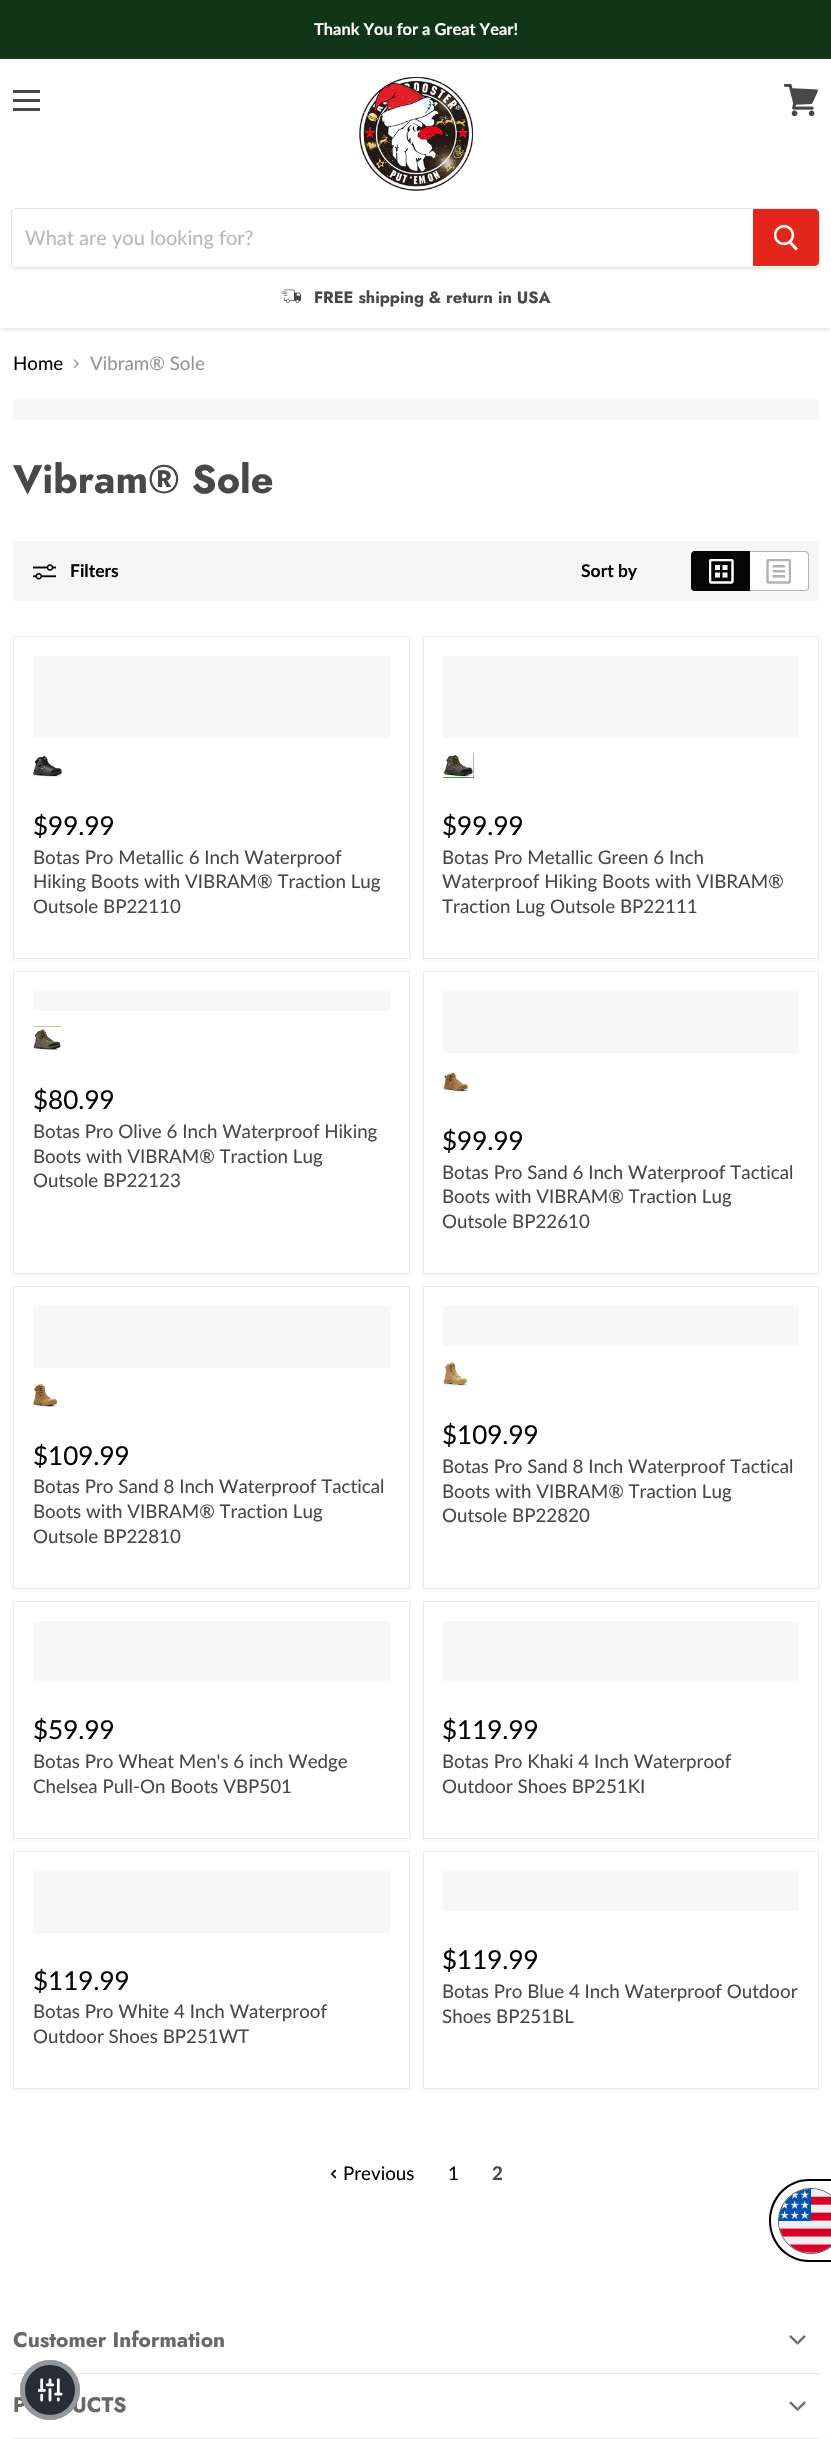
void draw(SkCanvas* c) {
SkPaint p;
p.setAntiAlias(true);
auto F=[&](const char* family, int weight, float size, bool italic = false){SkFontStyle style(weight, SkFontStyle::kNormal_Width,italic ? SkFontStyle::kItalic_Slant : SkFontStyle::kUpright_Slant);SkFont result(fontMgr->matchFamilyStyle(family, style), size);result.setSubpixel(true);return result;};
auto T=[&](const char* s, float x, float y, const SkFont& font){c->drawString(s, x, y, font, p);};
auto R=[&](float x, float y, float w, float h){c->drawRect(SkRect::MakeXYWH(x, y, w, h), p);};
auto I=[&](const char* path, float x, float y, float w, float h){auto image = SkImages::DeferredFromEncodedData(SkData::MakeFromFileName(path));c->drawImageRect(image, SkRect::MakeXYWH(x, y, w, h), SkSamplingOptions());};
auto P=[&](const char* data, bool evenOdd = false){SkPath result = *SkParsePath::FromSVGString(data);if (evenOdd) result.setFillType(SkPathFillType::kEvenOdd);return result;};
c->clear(0xffffffff);
p.setColor(0xff103519);
R(0,0,831,59);
auto f1 = F("Lato",700,16.4);
p.setColor(0xffffffff);
T("Thank You for a Great Year!",314,35,f1);
p.setColor(0x407f7f7f);
p.setMaskFilter(SkMaskFilter::MakeBlur(kNormal_SkBlurStyle, 2.5));
c->drawRect(SkRect::MakeXYWH(0,60,831,269),p);
p.setMaskFilter(nullptr);
p.setColor(0xffffffff);
R(0,59,831,269);
p.setColor(0xff484848);
R(13,90,27,3);
R(13,99,27,3);
R(13,108,27,3);
I("1.png",784,84,34,32);
I("2.png",359,76,115,116);
c->save();
c->clipPath(P("M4 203h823v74h-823zm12 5h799c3 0 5 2 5 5v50c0 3-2 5-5 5h-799c-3 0-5-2-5-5v-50c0-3 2-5 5-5z",true),true);
p.setColor(0x1c7f7f7f);
p.setMaskFilter(SkMaskFilter::MakeBlur(kNormal_SkBlurStyle, 2));
c->drawRoundRect(SkRect::MakeXYWH(11,210,809,60),5,5,p);
p.setMaskFilter(nullptr);
c->restore();
p.setStroke(true);
p.setStrokeWidth(1);
p.setColor(0x337f7f7f);
c->drawRoundRect(SkRect::MakeXYWH(11.5,208.5,808,59),4.5,4.5,p);
auto f2 = F("Lato",400,20);
p.setStroke(false);
p.setColor(0xffb8b8b8);
T("What are you looking for?",25,245,f2);
p.setColor(0xffe32619);
c->drawPath(P("M753.5 209.5h61.5c2 0 3.5 1.5 3.5 3.5v49c0 2-1.5 3.5-3.5 3.5h-61.5z"),p);
p.setStroke(true);
c->drawPath(P("M753.5 209.5h61.5c2 0 3.5 1.5 3.5 3.5v49c0 2-1.5 3.5-3.5 3.5h-61.5z"),p);
I("3.png",774,225,24,26);
I("4.png",281,289,20,14);
auto f3 = F("Jost",700,16.4);
p.setStroke(false);
p.setColor(0xff484848);
T("FREE shipping & return in USA",314,303,f3);
auto f4 = F("Lato",400,18.75);
p.setColor(0xff060606);
T("Home",13,370,f4);
I("5.png",73,359,6,10);
p.setColor(0xff949494);
T("Vibram® Sole",90,370,f4);
p.setColor(0xfff7f7f7);
R(13,399,806,21);
auto f5 = F("Jost",700,39.75);
p.setColor(0xff484848);
T("Vibram® Sole",13,493,f5);
p.setColor(0xfff6f6f6);
R(13,541,806,60);
I("6.png",33,564,23,16);
auto f6 = F("Lato",700,17.5);
p.setColor(0xff060606);
T("Filters",70,577,f6);
T("Sort by",581,577,f6);
c->drawPath(P("M695 551h55v40h-55c-2 0-4-2-4-4v-32c0-2 2-4 4-4z"),p);
c->drawPath(P("M695 551h55v40h-55c-2 0-4-1-4-3v-33c0-2 2-4 4-4zm0 1h55v38h-55c-1 0-3-1-3-2v-33c0-1 2-3 3-3z",true),p);
I("7.png",709,559,25,25);
p.setColor(0xffffffff);
c->drawPath(P("M750 551h55c2 0 4 2 4 4v32c0 2-2 4-4 4h-55z"),p);
p.setColor(0xffb3b3b3);
c->drawPath(P("M750 551h55c2 0 4 2 4 4v33c0 2-2 3-4 3h-55zm0 1h55c1 0 3 2 3 3v33c0 1-2 2-3 2h-55z",true),p);
I("8.png",766,559,25,25);
p.setColor(0x1c7f7f7f);
p.setMaskFilter(SkMaskFilter::MakeBlur(kNormal_SkBlurStyle, 2.5));
c->drawRect(SkRect::MakeXYWH(13,638,397,322),p);
p.setMaskFilter(nullptr);
p.setColor(0xffffffff);
c->drawRect(SkRect::MakeXYWH(13.5,636.5,396,322),p);
p.setStroke(true);
p.setColor(0xffebebeb);
c->drawRect(SkRect::MakeXYWH(13.5,636.5,396,322),p);
p.setStroke(false);
p.setColor(0xfff7f7f7);
R(33,656,357,82);
I("9.png",33,755,29,23);
auto f7 = F("Lato",400,26);
p.setColor(0xff060606);
T("$99.99",33,835,f7);
p.setColor(0xff484848);
T("Botas Pro Metallic 6 Inch Waterproof",33,864,f4);
T("Hiking Boots with VIBRAM® Traction Lug",33,888,f4);
T("Outsole BP22110",33,913,f4);
p.setColor(0x1c7f7f7f);
p.setMaskFilter(SkMaskFilter::MakeBlur(kNormal_SkBlurStyle, 2.5));
c->drawRect(SkRect::MakeXYWH(423,638,396,322),p);
p.setMaskFilter(nullptr);
p.setColor(0xffffffff);
c->drawRect(SkRect::MakeXYWH(423.5,636.5,395,322),p);
p.setStroke(true);
p.setColor(0xffebebeb);
c->drawRect(SkRect::MakeXYWH(423.5,636.5,395,322),p);
p.setStroke(false);
p.setColor(0xfff7f7f7);
R(443,656,356,82);
p.setColor(0xff008000);
R(443,753,31,25);
I("10.png",443,753,31,25);
p.setColor(0xff060606);
T("$99.99",442,835,f7);
p.setColor(0xff484848);
T("Botas Pro Metallic Green 6 Inch",442,864,f4);
T("Waterproof Hiking Boots with VIBRAM®",442,888,f4);
T("Traction Lug Outsole BP22111",442,913,f4);
p.setColor(0x1c7f7f7f);
p.setMaskFilter(SkMaskFilter::MakeBlur(kNormal_SkBlurStyle, 2.5));
c->drawRect(SkRect::MakeXYWH(13,973,397,302),p);
p.setMaskFilter(nullptr);
p.setColor(0xffffffff);
c->drawRect(SkRect::MakeXYWH(13.5,971.5,396,302),p);
p.setStroke(true);
p.setColor(0xffebebeb);
c->drawRect(SkRect::MakeXYWH(13.5,971.5,396,302),p);
p.setStroke(false);
p.setColor(0xfff7f7f7);
R(33,991,357,20);
p.setColor(0xff808000);
R(33,1026,28,1);
I("11.png",33,1026,28,25);
p.setColor(0xff060606);
T("$80.99",33,1109,f7);
p.setColor(0xff484848);
T("Botas Pro Olive 6 Inch Waterproof Hiking",33,1138,f4);
T("Boots with VIBRAM® Traction Lug",33,1163,f4);
T("Outsole BP22123",33,1187,f4);
p.setColor(0x1c7f7f7f);
p.setMaskFilter(SkMaskFilter::MakeBlur(kNormal_SkBlurStyle, 2.5));
c->drawRect(SkRect::MakeXYWH(423,973,396,302),p);
p.setMaskFilter(nullptr);
p.setColor(0xffffffff);
c->drawRect(SkRect::MakeXYWH(423.5,971.5,395,302),p);
p.setStroke(true);
p.setColor(0xffebebeb);
c->drawRect(SkRect::MakeXYWH(423.5,971.5,395,302),p);
p.setStroke(false);
p.setColor(0xfff7f7f7);
R(443,991,356,62);
I("12.png",443,1072,26,21);
p.setColor(0xff060606);
T("$99.99",442,1150,f7);
p.setColor(0xff484848);
T("Botas Pro Sand 6 Inch Waterproof Tactical",442,1179,f4);
T("Boots with VIBRAM® Traction Lug",442,1203,f4);
T("Outsole BP22610",442,1228,f4);
p.setColor(0x1c7f7f7f);
p.setMaskFilter(SkMaskFilter::MakeBlur(kNormal_SkBlurStyle, 2.5));
c->drawRect(SkRect::MakeXYWH(13,1288,397,302),p);
p.setMaskFilter(nullptr);
p.setColor(0xffffffff);
c->drawRect(SkRect::MakeXYWH(13.5,1286.5,396,302),p);
p.setStroke(true);
p.setColor(0xffebebeb);
c->drawRect(SkRect::MakeXYWH(13.5,1286.5,396,302),p);
p.setStroke(false);
p.setColor(0xfff7f7f7);
R(33,1306,357,62);
I("13.png",33,1383,25,24);
p.setColor(0xff060606);
T("$109.99",33,1465,f7);
p.setColor(0xff484848);
T("Botas Pro Sand 8 Inch Waterproof Tactical",33,1493,f4);
T("Boots with VIBRAM® Traction Lug",33,1518,f4);
T("Outsole BP22810",33,1543,f4);
p.setColor(0x1c7f7f7f);
p.setMaskFilter(SkMaskFilter::MakeBlur(kNormal_SkBlurStyle, 2.5));
c->drawRect(SkRect::MakeXYWH(423,1288,396,302),p);
p.setMaskFilter(nullptr);
p.setColor(0xffffffff);
c->drawRect(SkRect::MakeXYWH(423.5,1286.5,395,302),p);
p.setStroke(true);
p.setColor(0xffebebeb);
c->drawRect(SkRect::MakeXYWH(423.5,1286.5,395,302),p);
p.setStroke(false);
p.setColor(0xfff7f7f7);
R(443,1306,356,40);
I("14.png",443,1362,26,24);
p.setColor(0xff060606);
T("$109.99",442,1444,f7);
p.setColor(0xff484848);
T("Botas Pro Sand 8 Inch Waterproof Tactical",442,1473,f4);
T("Boots with VIBRAM® Traction Lug",442,1498,f4);
T("Outsole BP22820",442,1522,f4);
p.setColor(0x1c7f7f7f);
p.setMaskFilter(SkMaskFilter::MakeBlur(kNormal_SkBlurStyle, 2.5));
c->drawRect(SkRect::MakeXYWH(13,1603,397,237),p);
p.setMaskFilter(nullptr);
p.setColor(0xffffffff);
c->drawRect(SkRect::MakeXYWH(13.5,1601.5,396,237),p);
p.setStroke(true);
p.setColor(0xffebebeb);
c->drawRect(SkRect::MakeXYWH(13.5,1601.5,396,237),p);
p.setStroke(false);
p.setColor(0xfff7f7f7);
R(33,1621,357,60);
p.setColor(0xff060606);
T("$59.99",33,1739,f7);
p.setColor(0xff484848);
T("Botas Pro Wheat Men's 6 inch Wedge",33,1768,f4);
T("Chelsea Pull-On Boots VBP501",33,1793,f4);
p.setColor(0x1c7f7f7f);
p.setMaskFilter(SkMaskFilter::MakeBlur(kNormal_SkBlurStyle, 2.5));
c->drawRect(SkRect::MakeXYWH(423,1603,396,237),p);
p.setMaskFilter(nullptr);
p.setColor(0xffffffff);
c->drawRect(SkRect::MakeXYWH(423.5,1601.5,395,237),p);
p.setStroke(true);
p.setColor(0xffebebeb);
c->drawRect(SkRect::MakeXYWH(423.5,1601.5,395,237),p);
p.setStroke(false);
p.setColor(0xfff7f7f7);
R(443,1621,356,60);
p.setColor(0xff060606);
T("$119.99",442,1739,f7);
p.setColor(0xff484848);
T("Botas Pro Khaki 4 Inch Waterproof",442,1768,f4);
T("Outdoor Shoes BP251KI",442,1793,f4);
p.setColor(0x1c7f7f7f);
p.setMaskFilter(SkMaskFilter::MakeBlur(kNormal_SkBlurStyle, 2.5));
c->drawRect(SkRect::MakeXYWH(13,1853,397,237),p);
p.setMaskFilter(nullptr);
p.setColor(0xffffffff);
c->drawRect(SkRect::MakeXYWH(13.5,1851.5,396,237),p);
p.setStroke(true);
p.setColor(0xffebebeb);
c->drawRect(SkRect::MakeXYWH(13.5,1851.5,396,237),p);
p.setStroke(false);
p.setColor(0xfff7f7f7);
R(33,1871,357,62);
p.setColor(0xff060606);
T("$119.99",33,1990,f7);
p.setColor(0xff484848);
T("Botas Pro White 4 Inch Waterproof",33,2018,f4);
T("Outdoor Shoes BP251WT",33,2043,f4);
p.setColor(0x1c7f7f7f);
p.setMaskFilter(SkMaskFilter::MakeBlur(kNormal_SkBlurStyle, 2.5));
c->drawRect(SkRect::MakeXYWH(423,1853,396,237),p);
p.setMaskFilter(nullptr);
p.setColor(0xffffffff);
c->drawRect(SkRect::MakeXYWH(423.5,1851.5,395,237),p);
p.setStroke(true);
p.setColor(0xffebebeb);
c->drawRect(SkRect::MakeXYWH(423.5,1851.5,395,237),p);
p.setStroke(false);
p.setColor(0xfff7f7f7);
R(443,1871,356,40);
p.setColor(0xff060606);
T("$119.99",442,1969,f7);
p.setColor(0xff484848);
T("Botas Pro Blue 4 Inch Waterproof Outdoor",442,1998,f4);
T("Shoes BP251BL",442,2023,f4);
I("15.png",330,2169,7,10);
p.setColor(0xff060606);
T("Previous",343,2180,f4);
T("1",448,2180,f4);
auto f8 = F("Lato",700,18.75);
p.setColor(0xff484848);
T("2",492,2180,f8);
p.setColor(0xff000000);
c->drawPath(P("M809 2179h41v83h-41c-22 0-40-18-40-41c0-24 18-42 40-42zm0 2h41v79h-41c-21 0-38-18-38-39c0-22 17-40 38-40z",true),p);
p.setStroke(true);
p.setColor(0xff4d4d4d);
c->drawCircle(811,2221,32.5,p);
I("16.png",779,2189,52,64);
p.setStroke(false);
p.setColor(0xffe8e8e8);
R(13,2373,806,1);
auto f9 = F("Jost",700,21);
p.setColor(0xff686868);
T("Customer Information",13,2347,f9);
I("17.png",789,2335,17,10);
p.setColor(0xffe8e8e8);
R(13,2438,806,1);
p.setColor(0xff686868);
T("P",13,2412,f9);
T("UCTS",72,2412,f9);
I("18.png",789,2401,17,10);
p.setColor(0xff272d36);
c->drawCircle(50,2390,30,p);
p.setStroke(true);
p.setStrokeWidth(5);
p.setColor(0x80ffffff);
c->drawCircle(50,2390,27.5,p);
I("19.png",38,2378,25,24);
p.setStroke(false);
p.setColor(0xfff5f5f5);
R(829,2438,2,1);
}
